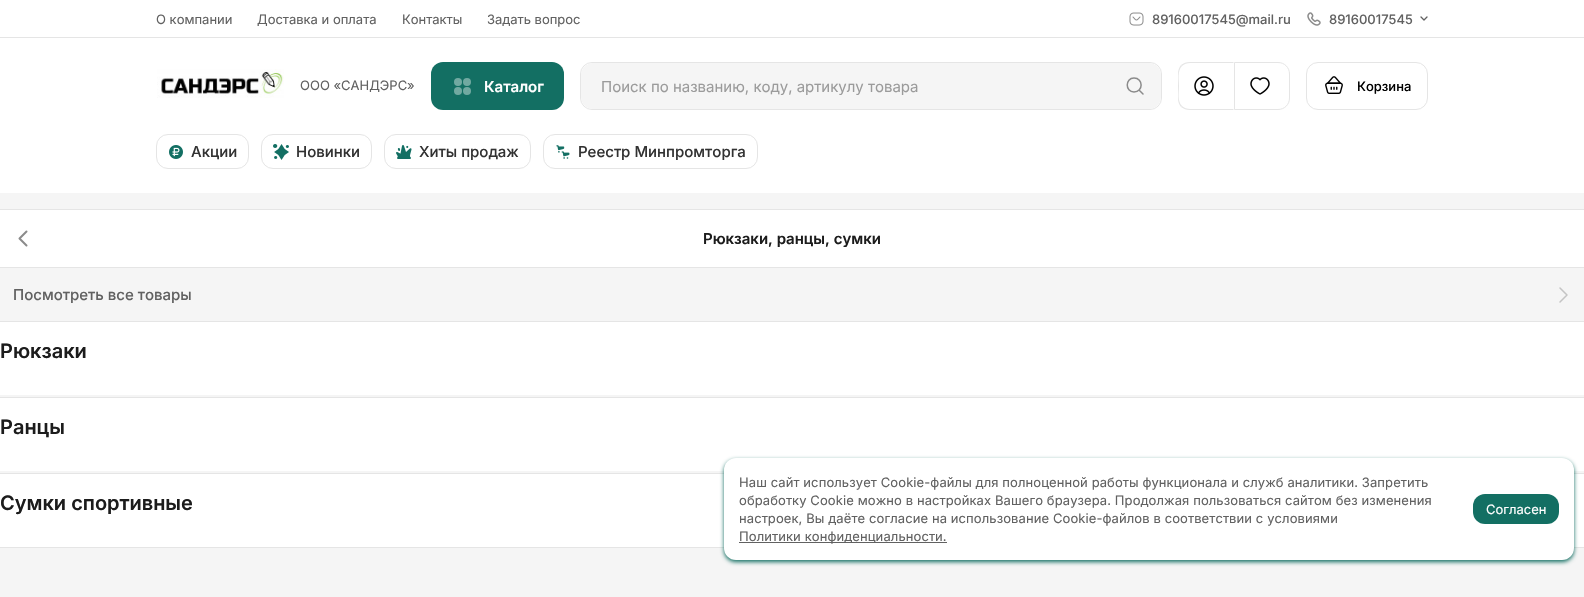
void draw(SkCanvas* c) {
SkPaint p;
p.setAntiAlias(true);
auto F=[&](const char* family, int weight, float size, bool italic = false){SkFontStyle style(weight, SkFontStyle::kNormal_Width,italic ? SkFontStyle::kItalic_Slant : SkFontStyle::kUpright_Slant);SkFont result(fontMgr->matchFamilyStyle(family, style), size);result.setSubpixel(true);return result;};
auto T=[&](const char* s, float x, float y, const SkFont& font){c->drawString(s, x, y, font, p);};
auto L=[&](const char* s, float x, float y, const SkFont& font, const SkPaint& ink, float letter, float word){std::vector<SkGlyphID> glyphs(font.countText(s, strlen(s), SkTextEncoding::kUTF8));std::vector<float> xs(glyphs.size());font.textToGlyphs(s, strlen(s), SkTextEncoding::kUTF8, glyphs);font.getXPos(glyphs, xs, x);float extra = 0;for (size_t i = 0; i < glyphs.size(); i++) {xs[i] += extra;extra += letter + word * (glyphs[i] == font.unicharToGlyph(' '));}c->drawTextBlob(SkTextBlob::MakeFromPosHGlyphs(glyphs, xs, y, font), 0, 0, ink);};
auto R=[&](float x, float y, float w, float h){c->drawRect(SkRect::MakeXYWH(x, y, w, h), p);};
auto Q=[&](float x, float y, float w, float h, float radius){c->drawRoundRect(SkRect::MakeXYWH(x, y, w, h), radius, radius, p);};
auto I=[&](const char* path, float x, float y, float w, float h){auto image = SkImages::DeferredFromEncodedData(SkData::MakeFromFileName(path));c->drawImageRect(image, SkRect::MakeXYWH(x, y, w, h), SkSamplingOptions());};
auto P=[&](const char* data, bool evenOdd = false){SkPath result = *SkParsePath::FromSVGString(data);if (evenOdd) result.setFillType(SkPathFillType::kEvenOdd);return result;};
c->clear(0xfff5f5f5);
p.setColor(0xffffffff);
R(0,0,1584,37);
p.setColor(0xffe5e5e5);
R(0,37,1584,1);
auto f1 = F("Inter",400,13);
p.setColor(0xff616161);
T("О компании",156,24,f1);
T("Доставка и оплата",257,24,f1);
T("Контакты",402,24,f1);
T("Задать вопрос",487,24,f1);
I("1.png",1129,12,15,14);
auto f2 = F("Inter",500,13);
T("89160017545@mail.ru",1152,24,f2);
I("2.png",1307,12,14,14);
T("89160017545",1329,24,f2);
p.setStroke(true);
p.setStrokeWidth(1.3);
p.setStrokeCap(SkPaint::kRound_Cap);
p.setStrokeJoin(SkPaint::kRound_Join);
c->drawPath(P("M1421 17l3 3l3-3"),p);
p.setStroke(false);
p.setColor(0xffffffff);
R(0,38,1584,155);
I("3.png",157,69,127,29);
p.setColor(0xff616161);
T("ООО «САНДЭРС»",300,90,f1);
p.setColor(0xff136f63);
Q(431,62,133,48,12);
p.setColor(0xff71a9a1);
c->drawCircle(458,82,4,p);
c->drawCircle(467,82,4,p);
c->drawCircle(458,91,4,p);
c->drawCircle(467,91,4,p);
auto f3 = F("Inter",600,15);
p.setColor(0xffffffff);
T("Каталог",484,92,f3);
p.setStroke(true);
p.setStrokeWidth(1);
p.setStrokeCap(SkPaint::kButt_Cap);
p.setStrokeJoin(SkPaint::kMiter_Join);
p.setColor(0xffe5e5e5);
c->drawRoundRect(SkRect::MakeXYWH(580.5,62.5,581,47),11.5,11.5,p);
c->save();
c->clipPath(P("M592 63h558c6 0 11 5 11 11v24c0 6-5 11-11 11h-558c-6 0-11-5-11-11v-24c0-6 5-11 11-11z"),true);
p.setStroke(false);
p.setColor(0xfff5f5f5);
Q(581,63,580,46,12);
c->restore();
auto f4 = F("Inter",400,15);
p.setColor(0xff9b9b9b);
T("Поиск по названию, коду, артикулу товара",601,92,f4);
p.setStroke(true);
p.setStrokeWidth(1.5);
p.setStrokeCap(SkPaint::kRound_Cap);
p.setStrokeJoin(SkPaint::kRound_Join);
p.setColor(0xff8b8b8b);
c->drawPath(P("M1134 92c9.5 0 9.5-14 0-14c-9 0-9 14 0 14zm9 2l-4-4"),p);
p.setStroke(false);
p.setColor(0xffe5e5e5);
c->drawPath(P("M1190 62c-4 0-6 1-9 3l1 1c2-2 5-3 8-3h43l1-1zm44 48l-1-1h-43c-3 0-6-1-8-3l-1 1c3 2 5 3 9 3z"),p);
c->drawPath(P("M1178 74v24c0 4 1 6 3 9l1-1c-5-5-3-14-3-20c0-6-2-15 3-20l-1-1c-2 3-3 5-3 9z"),p);
I("4.png",1194,76,20,20);
p.setStroke(true);
p.setStrokeWidth(1);
p.setStrokeCap(SkPaint::kButt_Cap);
p.setStrokeJoin(SkPaint::kMiter_Join);
c->drawPath(P("M1234.5 62.5h43.5c6.5 0 11.5 5 11.5 11.5v24c0 6.5-5 11.5-11.5 11.5h-43.5z"),p);
I("5.png",1250,77,20,18);
c->drawRoundRect(SkRect::MakeXYWH(1306.5,62.5,121,47),11.5,11.5,p);
I("6.png",1325,76,18,18);
p.setStroke(false);
p.setColor(0xff000000);
T("Корзина",1357,91,f2);
p.setStroke(true);
p.setColor(0xffe5e5e5);
c->drawRoundRect(SkRect::MakeXYWH(156.5,134.5,92,34),11.5,11.5,p);
I("7.png",169,145,14,14);
auto f5 = F("Inter",500,15);
p.setStroke(false);
p.setColor(0xff323232);
T("Акции",191,157,f5);
p.setStroke(true);
p.setColor(0xffe5e5e5);
c->drawRoundRect(SkRect::MakeXYWH(261.5,134.5,110,34),11.5,11.5,p);
I("8.png",273,144,16,16);
p.setStroke(false);
p.setColor(0xff323232);
T("Новинки",296,157,f5);
p.setStroke(true);
p.setColor(0xffe5e5e5);
c->drawRoundRect(SkRect::MakeXYWH(384.5,134.5,146,34),11.5,11.5,p);
I("9.png",396,145,16,14);
p.setStroke(false);
p.setColor(0xff323232);
T("Хиты продаж",419,157,f5);
p.setStroke(true);
p.setColor(0xffe5e5e5);
c->drawRoundRect(SkRect::MakeXYWH(543.5,134.5,214,34),11.5,11.5,p);
I("10.png",556,145,14,14);
p.setStroke(false);
p.setColor(0xff323232);
T("Реестр Минпромторга",578,157,f5);
p.setColor(0xffffffff);
R(0,210,1584,57);
p.setColor(0xffe5e5e5);
R(0,209,1584,1);
R(0,267,1584,1);
p.setStroke(true);
p.setStrokeWidth(2);
p.setStrokeCap(SkPaint::kRound_Cap);
p.setStrokeJoin(SkPaint::kRound_Join);
p.setColor(0xff8b8b8b);
c->drawPath(P("M26.5 231.5l-7 7l7 7"),p);
p.setStroke(false);
p.setColor(0xff1c1c1c);
T("Рюкзаки, ранцы, сумки",703,244,f3);
p.setColor(0xff616161);
T("Посмотреть все товары",13,300,f5);
p.setStroke(true);
p.setStrokeWidth(1.5);
p.setColor(0xffc4c4c4);
c->drawPath(P("M1560 288l7 7l-7 7"),p);
p.setStroke(false);
p.setColor(0xffe5e5e5);
R(0,321,1584,1);
p.setColor(0xffffffff);
R(0,322,1584,73);
auto f6 = F("Inter",600,20);
p.setColor(0xff1c1c1c);
T("Рюкзаки",0,358,f6);
p.setColor(0xffe5e5e5);
R(0,397,1584,1);
p.setColor(0xffffffff);
R(0,398,1584,73);
p.setColor(0xff1c1c1c);
T("Ранцы",0,434,f6);
p.setColor(0xffe5e5e5);
R(0,473,1584,1);
R(0,547,1584,1);
p.setColor(0xffffffff);
R(0,474,1584,73);
p.setColor(0xff1c1c1c);
T("Сумки спортивные",0,510,f6);
p.setColor(0xff136f63);
p.setMaskFilter(SkMaskFilter::MakeBlur(kNormal_SkBlurStyle, 2));
c->drawRoundRect(SkRect::MakeXYWH(724,460,850,102),12,12,p);
p.setMaskFilter(nullptr);
p.setColor(0xffffffff);
Q(724,458,850,102,12);
p.setColor(0xff616161);
L("Наш сайт использует Сookie-файлы для полноценной работы функционала и служб аналитики. Запретить",739,487,f1,p,.1,0);
L("обработку Cookie можно в настройках Вашего браузера. Продолжая пользоваться сайтом без изменения",739,505,f1,p,.1,0);
L("настроек, Вы даёте согласие на использование Cookie-файлов в соответствии с условиями",739,523,f1,p,.1,0);
R(739,542,208,1);
L("Политики конфиденциальности.",739,541,f1,p,.1,0);
p.setColor(0xff136f63);
Q(1473,494,86,30,12);
p.setColor(0xffffffff);
T("Согласен",1486,514,f1);
}
